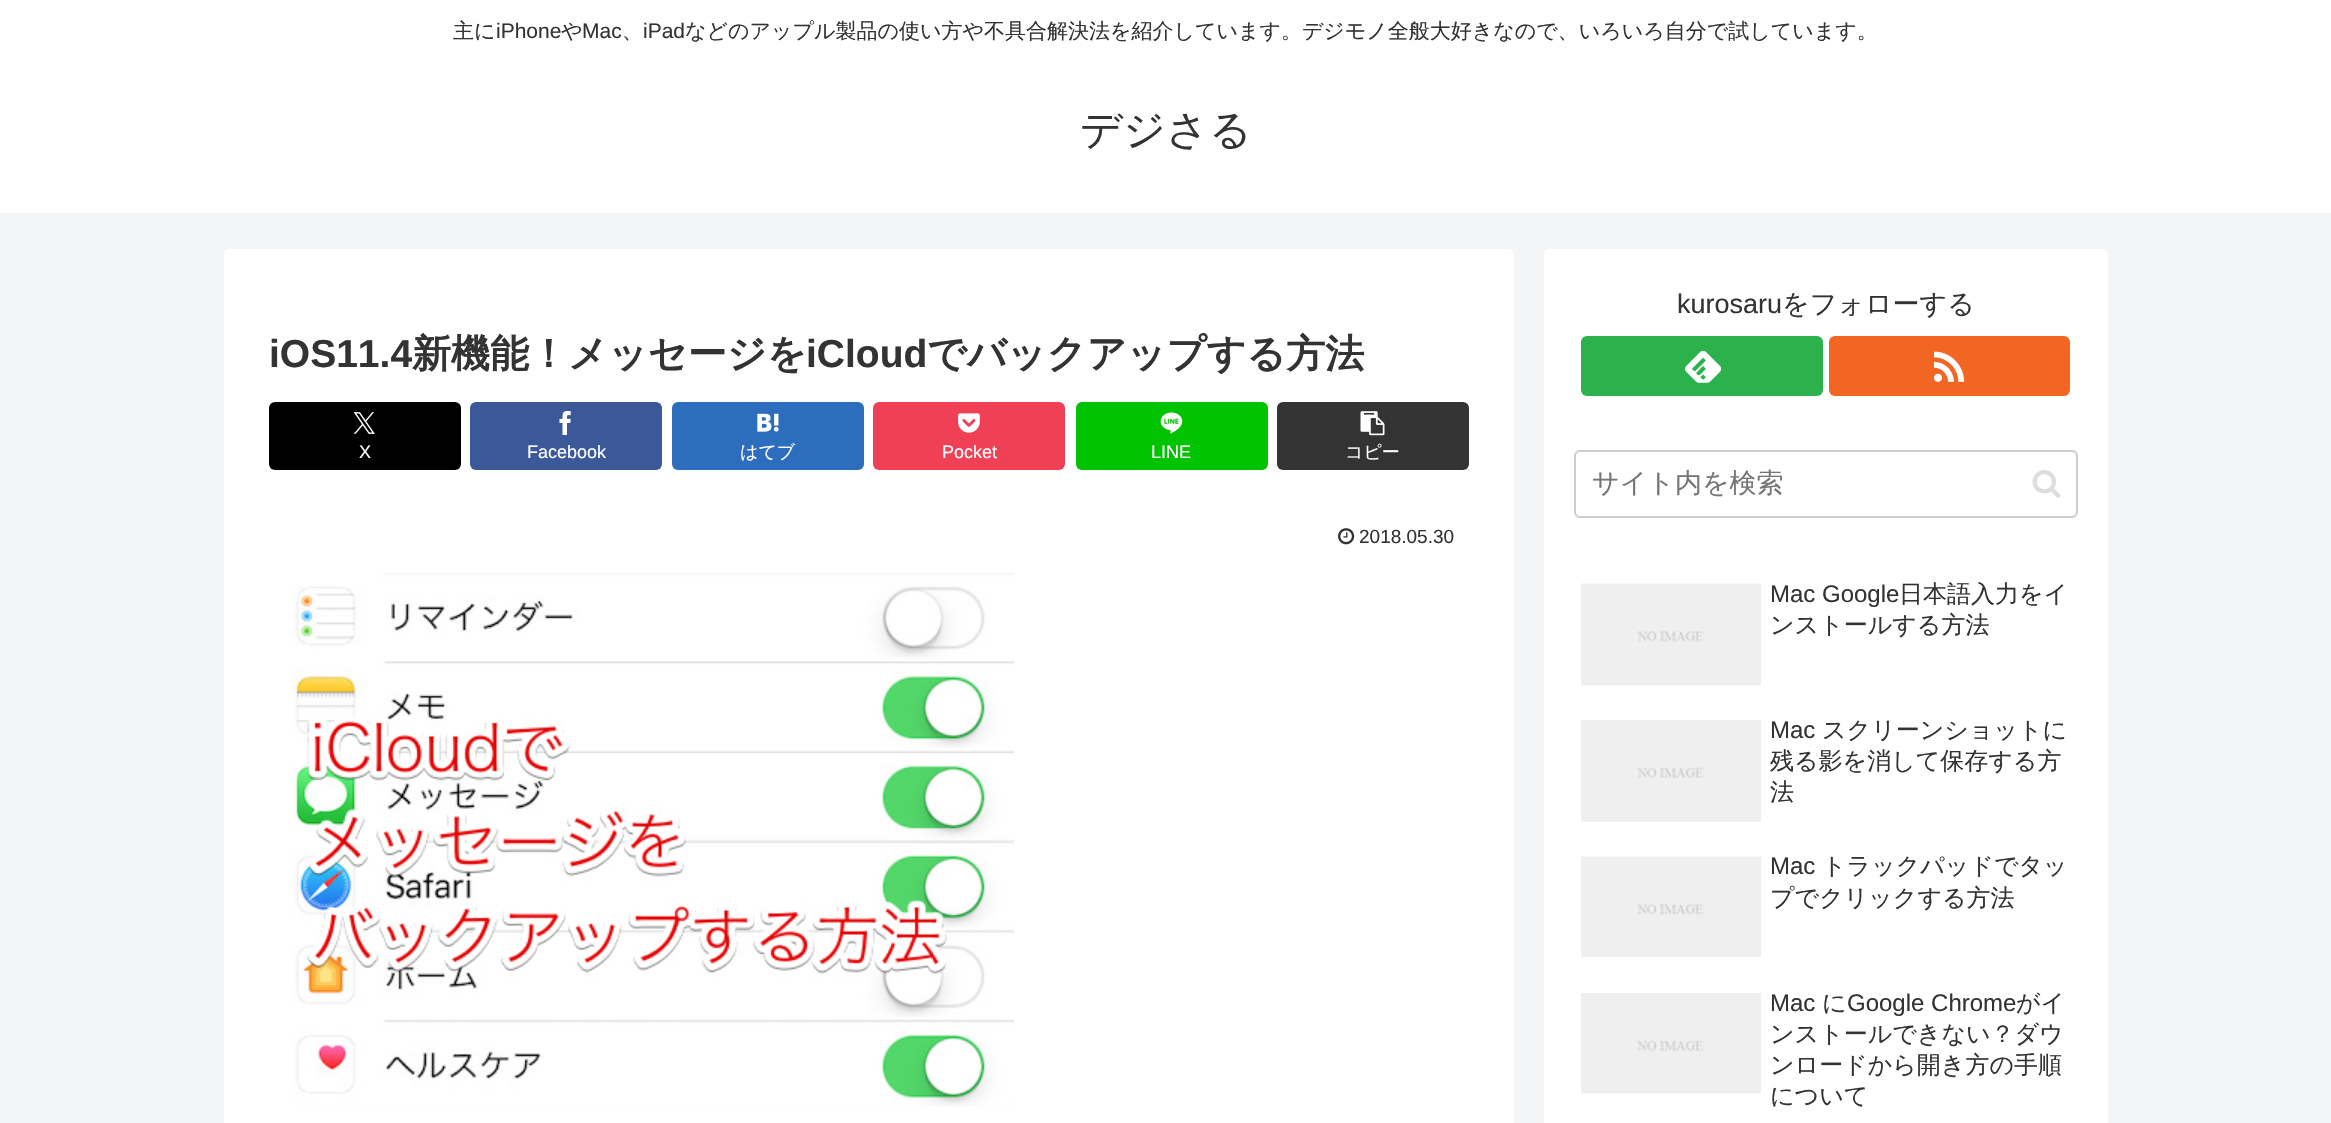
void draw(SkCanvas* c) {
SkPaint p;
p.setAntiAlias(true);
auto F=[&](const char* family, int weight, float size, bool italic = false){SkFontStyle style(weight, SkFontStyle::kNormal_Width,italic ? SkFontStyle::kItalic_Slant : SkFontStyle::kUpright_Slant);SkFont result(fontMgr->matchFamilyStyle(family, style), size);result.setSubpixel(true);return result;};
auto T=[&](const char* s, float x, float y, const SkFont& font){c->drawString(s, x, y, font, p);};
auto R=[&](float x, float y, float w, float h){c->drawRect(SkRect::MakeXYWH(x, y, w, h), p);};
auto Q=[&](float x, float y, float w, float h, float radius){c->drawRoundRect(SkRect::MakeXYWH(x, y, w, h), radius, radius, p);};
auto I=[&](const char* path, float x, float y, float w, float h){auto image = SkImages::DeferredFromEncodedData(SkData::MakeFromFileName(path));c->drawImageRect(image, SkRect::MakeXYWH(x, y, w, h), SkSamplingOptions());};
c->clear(0xfff4f5f7);
p.setColor(0xffffffff);
R(0,0,2331,213);
auto f1 = F("WenQuanYi Zen Hei",500,21);
p.setColor(0xff333333);
T("主に",453,38,f1);
auto f2 = F("Liberation Sans",400,21);
T("iPhone",496,38,f2);
T("や",561,38,f1);
T("Mac",582,38,f2);
T("、",622,38,f1);
T("iPad",643,38,f2);
T("などのアップル製品の使い方や不具合解決法を紹介しています。デジモノ全般大好きなので、いろいろ自分で試しています。",685,38,f1);
auto f3 = F("WenQuanYi Zen Hei",500,42);
T("デジさる",1080,144,f3);
p.setColor(0xffffffff);
Q(224,249,1290,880,6);
auto f4 = F("Liberation Sans",700,39);
p.setColor(0xff333333);
T("iOS11.4",269,367,f4);
auto f5 = F("WenQuanYi Zen Hei",700,39);
T("新機能！メッセージを",412,367,f5);
T("iCloud",806,367,f4);
T("でバックアップする方法",927,367,f5);
p.setColor(0xff000000);
Q(269,402,192,68,6);
I("1.png",353,412,22,22);
auto f6 = F("Liberation Sans",400,18);
p.setColor(0xffffffff);
T("X",359,458,f6);
p.setColor(0xff3b5998);
Q(470,402,192,68,6);
I("2.png",559,411,12,24);
p.setColor(0xffffffff);
T("Facebook",527,458,f6);
p.setColor(0xff2c6ebd);
Q(672,402,192,68,6);
I("3.png",757,413,22,19);
auto f7 = F("WenQuanYi Zen Hei",500,18);
p.setColor(0xffffffff);
T("はてブ",740,458,f7);
p.setColor(0xffef4056);
Q(873,402,192,68,6);
I("4.png",958,413,22,20);
p.setColor(0xffffffff);
T("Pocket",942,458,f6);
p.setColor(0xff00c300);
Q(1076,402,192,68,6);
I("5.png",1160,412,23,22);
p.setColor(0xffffffff);
T("LINE",1151,458,f6);
p.setColor(0xff333333);
Q(1277,402,192,68,6);
I("6.png",1360,411,25,25);
p.setColor(0xffffffff);
T("コピー",1345,458,f7);
I("7.png",1338,528,17,17);
auto f8 = F("Liberation Sans",400,19);
p.setColor(0xff333333);
T("2018.05.30",1359,543,f8);
I("8.png",293,573,721,534);
p.setColor(0xffffffff);
Q(1544,249,564,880,6);
auto f9 = F("Liberation Sans",400,27);
p.setColor(0xff333333);
T("kurosaru",1677,313,f9);
auto f10 = F("WenQuanYi Zen Hei",500,27);
T("をフォローする",1782,313,f10);
p.setColor(0xff2bb24c);
Q(1581,336,242,60,6);
I("9.png",1685,350,37,33);
p.setColor(0xfff26522);
Q(1829,336,241,60,6);
I("10.png",1933,351,32,31);
p.setStroke(true);
p.setStrokeWidth(2);
p.setColor(0xffcccccc);
c->drawRoundRect(SkRect::MakeXYWH(1575,451,502,66),5,5,p);
p.setStroke(false);
p.setColor(0xff757575);
T("サイト内を検索",1592,492,f10);
I("11.png",2032,470,29,28);
I("12.png",1581,583,180,103);
auto f11 = F("Liberation Sans",400,24);
p.setColor(0xff333333);
T("Mac Google",1770,602,f11);
auto f12 = F("WenQuanYi Zen Hei",500,24);
T("日本語入力をイ",1899,602,f12);
T("ンストールする方法",1770,633,f12);
I("13.png",1581,720,180,102);
T("Mac",1770,738,f11);
T("スクリーンショットに",1822,738,f12);
T("残る影を消して保存する方",1770,769,f12);
T("法",1770,800,f12);
I("14.png",1581,856,180,101);
T("Mac",1770,874,f11);
T("トラックパッドでタッ",1822,874,f12);
T("プでクリックする方法",1770,906,f12);
I("15.png",1581,993,180,101);
T("Mac",1770,1011,f11);
T("に",1822,1011,f12);
T("Google Chrome",1847,1011,f11);
T("がイ",2016,1011,f12);
T("ンストールできない？ダウ",1770,1042,f12);
T("ンロードから開き方の手順",1770,1073,f12);
T("について",1770,1104,f12);
}
